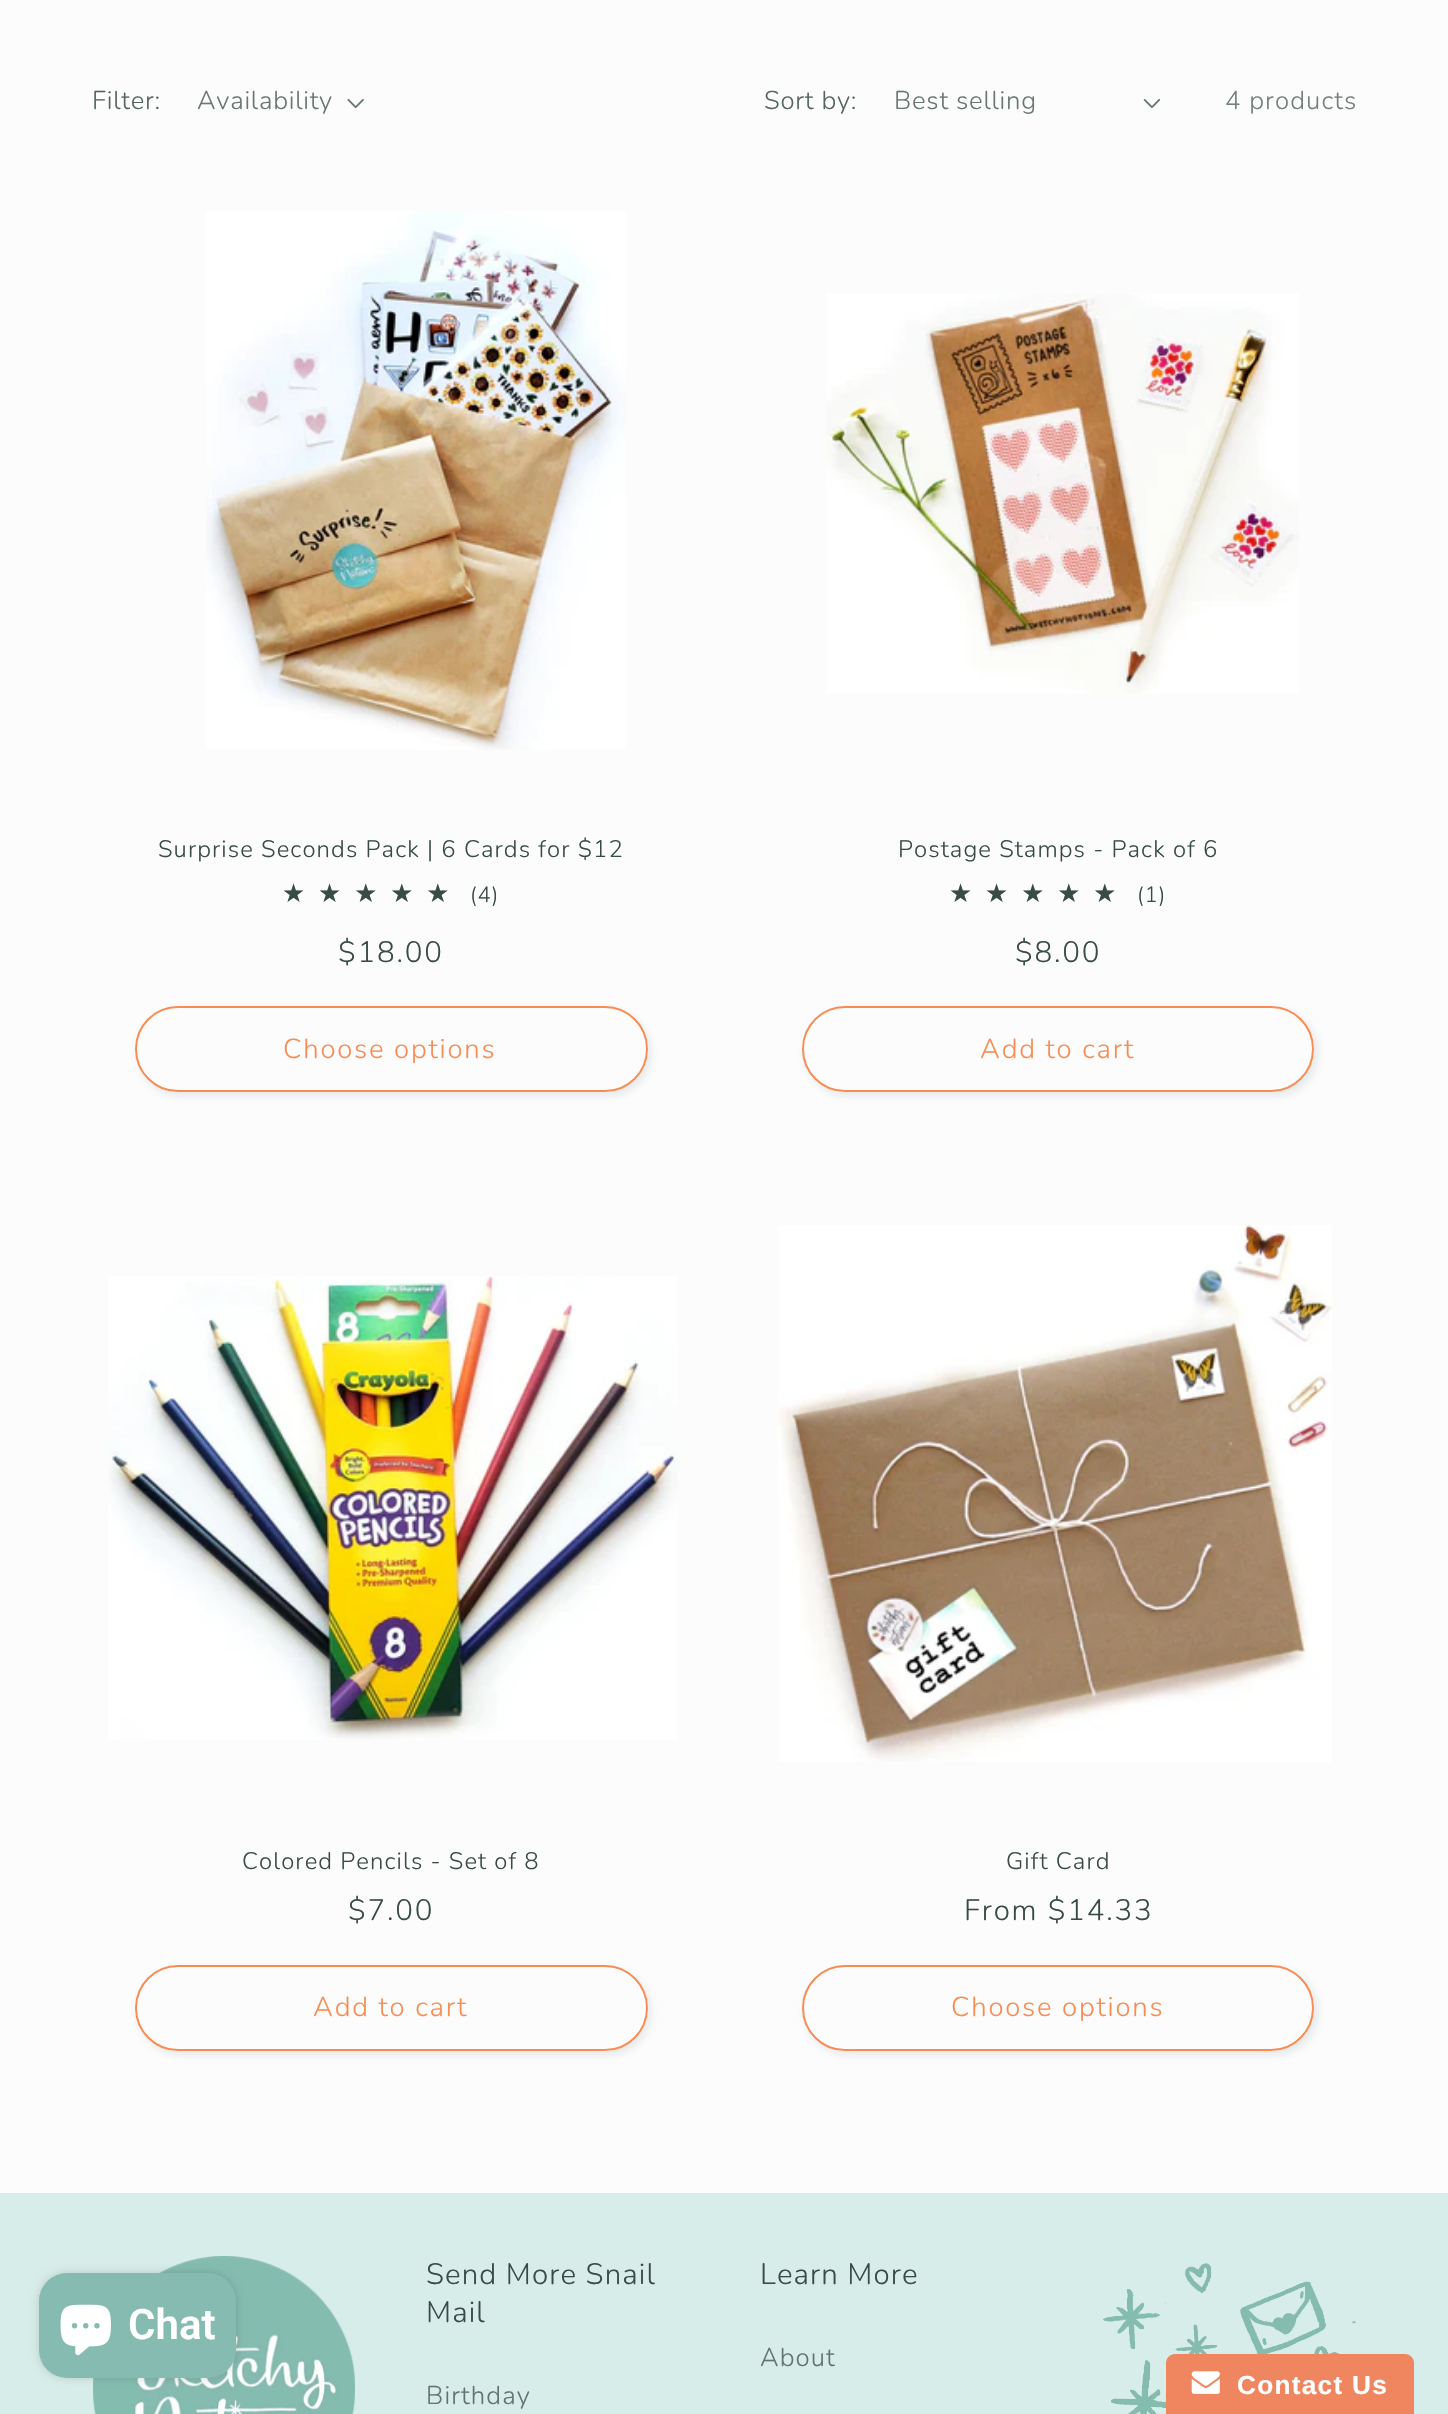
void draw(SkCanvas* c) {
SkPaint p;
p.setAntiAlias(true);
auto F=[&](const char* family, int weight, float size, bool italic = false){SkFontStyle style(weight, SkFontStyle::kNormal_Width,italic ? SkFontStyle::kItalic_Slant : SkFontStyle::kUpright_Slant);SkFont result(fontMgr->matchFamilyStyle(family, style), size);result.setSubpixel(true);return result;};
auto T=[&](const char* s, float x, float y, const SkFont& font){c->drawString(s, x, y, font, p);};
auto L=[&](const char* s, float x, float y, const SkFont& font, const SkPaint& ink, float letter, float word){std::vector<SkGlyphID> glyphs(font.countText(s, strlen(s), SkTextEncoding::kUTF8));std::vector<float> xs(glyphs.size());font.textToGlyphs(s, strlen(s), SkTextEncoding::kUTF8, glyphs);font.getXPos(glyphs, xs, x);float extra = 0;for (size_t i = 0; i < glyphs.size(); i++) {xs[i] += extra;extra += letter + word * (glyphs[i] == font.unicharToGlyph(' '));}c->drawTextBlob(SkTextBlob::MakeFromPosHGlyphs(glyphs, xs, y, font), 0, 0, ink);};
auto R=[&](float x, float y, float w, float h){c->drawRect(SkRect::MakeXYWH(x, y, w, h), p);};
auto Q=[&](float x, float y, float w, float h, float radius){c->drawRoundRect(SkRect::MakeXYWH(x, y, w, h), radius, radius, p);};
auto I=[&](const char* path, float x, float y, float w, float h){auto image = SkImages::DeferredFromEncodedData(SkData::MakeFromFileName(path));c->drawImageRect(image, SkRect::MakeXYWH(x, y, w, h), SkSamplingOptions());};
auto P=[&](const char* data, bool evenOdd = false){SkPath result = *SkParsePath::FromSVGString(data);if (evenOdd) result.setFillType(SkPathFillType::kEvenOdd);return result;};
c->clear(0xfffcfcfc);
auto f1 = F("Nunito",300,25.75);
p.setColor(0xff556662);
L("Filter:",92,109,f1,p,.75,0);
p.setColor(0xff697774);
L("Availability",197,109,f1,p,.75,0);
I("1.png",347,99,17,9);
p.setColor(0xff556662);
L("Sort by:",764,109,f1,p,.75,0);
p.setColor(0xff697774);
L("Best selling",894,109,f1,p,.75,0);
I("2.png",1143,99,17,9);
p.setColor(0xff73807d);
L("4 products",1225,109,f1,p,1.1,0);
I("3.png",206,211,420,539);
auto f2 = F("Nunito",300,23.9);
p.setColor(0xff384b47);
L("Surprise Seconds Pack | 6 Cards for $12",158,857,f2,p,1.1,0);
auto f3 = F("DejaVu Sans",400,25.75);
{
const SkColor colors[] = {0xff384b47,0xffdfe1e1};
const float stops[] = {1,1};
const SkPoint ends[] = {{282,893}, {461,893}};
p.setShader(SkGradientShader::MakeLinear(ends, colors, stops, 2, SkTileMode::kClamp));
p.setAlpha(255);
}
L("★★★★★",282,902,f3,p,13,0);
auto f4 = F("Nunito",300,22);
p.setShader(nullptr);
p.setColor(0xff384b47);
L("(4)",470,902,f4,p,1,0);
auto f5 = F("Nunito",300,29.5);
L("$18.00",338,962,f5,p,1.8,0);
p.setColor(0x1a103948);
p.setMaskFilter(SkMaskFilter::MakeBlur(kNormal_SkBlurStyle, 4.5));
c->drawRoundRect(SkRect::MakeXYWH(138,1010,513,86),43,43,p);
p.setMaskFilter(nullptr);
p.setColor(0xfffcfcfc);
Q(135,1006,513,86,43);
p.setStroke(true);
p.setStrokeWidth(2);
c->drawRoundRect(SkRect::MakeXYWH(136,1007,511,84),42,42,p);
p.setColor(0xfff78d54);
c->drawRoundRect(SkRect::MakeXYWH(136,1007,511,84),42,42,p);
auto f6 = F("Nunito",300,27.5);
p.setStroke(false);
L("Choose options",283,1058,f6,p,1.8,0);
I("4.png",826,293,473,401);
p.setColor(0xff384b47);
L("Postage Stamps - Pack of 6",898,857,f2,p,1.1,0);
{
const SkColor colors[] = {0xff384b47,0xffdfe1e1};
const float stops[] = {1,1};
const SkPoint ends[] = {{949,893}, {1129,893}};
p.setShader(SkGradientShader::MakeLinear(ends, colors, stops, 2, SkTileMode::kClamp));
p.setAlpha(255);
}
L("★★★★★",949,902,f3,p,13,0);
p.setShader(nullptr);
p.setColor(0xff384b47);
L("(1)",1137,902,f4,p,1,0);
L("$8.00",1015,962,f5,p,1.8,0);
p.setColor(0x1a103948);
p.setMaskFilter(SkMaskFilter::MakeBlur(kNormal_SkBlurStyle, 4.5));
c->drawRoundRect(SkRect::MakeXYWH(805,1010,513,86),43,43,p);
p.setMaskFilter(nullptr);
p.setColor(0xfffcfcfc);
Q(802,1006,512,86,43);
p.setStroke(true);
c->drawRoundRect(SkRect::MakeXYWH(803,1007,510,84),42,42,p);
p.setColor(0xfff78d54);
c->drawRoundRect(SkRect::MakeXYWH(803,1007,510,84),42,42,p);
p.setStroke(false);
L("Add to cart",980,1058,f6,p,1.8,0);
I("5.png",108,1276,570,464);
p.setColor(0xff384b47);
L("Colored Pencils - Set of 8",242,1869,f2,p,1.1,0);
L("$7.00",348,1920,f5,p,1.8,0);
p.setColor(0x1a103948);
p.setMaskFilter(SkMaskFilter::MakeBlur(kNormal_SkBlurStyle, 4.5));
c->drawRoundRect(SkRect::MakeXYWH(138,1969,513,86),43,43,p);
p.setMaskFilter(nullptr);
p.setColor(0xfffcfcfc);
Q(135,1965,513,86,43);
p.setStroke(true);
c->drawRoundRect(SkRect::MakeXYWH(136,1966,511,84),42,42,p);
p.setColor(0xfff78d54);
c->drawRoundRect(SkRect::MakeXYWH(136,1966,511,84),42,42,p);
p.setStroke(false);
L("Add to cart",313,2016,f6,p,1.8,0);
I("6.png",778,1225,554,537);
p.setColor(0xff384b47);
L("Gift Card",1006,1869,f2,p,1.1,0);
L("From $14.33",964,1920,f5,p,1.8,0);
p.setColor(0x1a103948);
p.setMaskFilter(SkMaskFilter::MakeBlur(kNormal_SkBlurStyle, 4.5));
c->drawRoundRect(SkRect::MakeXYWH(805,1969,513,86),43,43,p);
p.setMaskFilter(nullptr);
p.setColor(0xfffcfcfc);
Q(802,1965,512,86,43);
p.setStroke(true);
c->drawRoundRect(SkRect::MakeXYWH(803,1966,510,84),42,42,p);
p.setColor(0xfff78d54);
c->drawRoundRect(SkRect::MakeXYWH(803,1966,510,84),42,42,p);
p.setStroke(false);
L("Choose options",951,2016,f6,p,1.8,0);
p.setColor(0xffd7ede9);
R(0,2193,1448,221);
I("8.png",93,2256,262,158);
p.setColor(0x26000000);
p.setMaskFilter(SkMaskFilter::MakeBlur(kNormal_SkBlurStyle, 4.5));
c->drawRoundRect(SkRect::MakeXYWH(39,2273,197,105),28,28,p);
p.setMaskFilter(nullptr);
p.setColor(0xff86bbb1);
Q(39,2273,197,105,28);
I("7.png",60,2304,51,52);
auto f7 = F("Roboto",600,42);
p.setColor(0xffffffff);
T("Chat",128,2339,f7);
p.setColor(0xff384b47);
L("Send More Snail",426,2284,f5,p,1.1,0);
L("Mail",426,2322,f5,p,1.1,0);
p.setColor(0xff607470);
L("Birthday",426,2404,f1,p,1.1,0);
p.setColor(0xff384b47);
L("Learn More",760,2284,f5,p,1.1,0);
p.setColor(0xff607470);
L("About",760,2366,f1,p,1.1,0);
I("9.png",1103,2263,253,151);
p.setColor(0xfff08660);
c->drawPath(P("M1175 2354h230c5 0 9 4 9 9v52h-248v-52c0-5 4-9 9-9z"),p);
I("10.png",1191,2371,29,23);
auto f8 = F("Liberation Sans",700,26.25);
p.setColor(0xffffffff);
L("Contact Us",1237,2394,f8,p,1.25,0);
}
